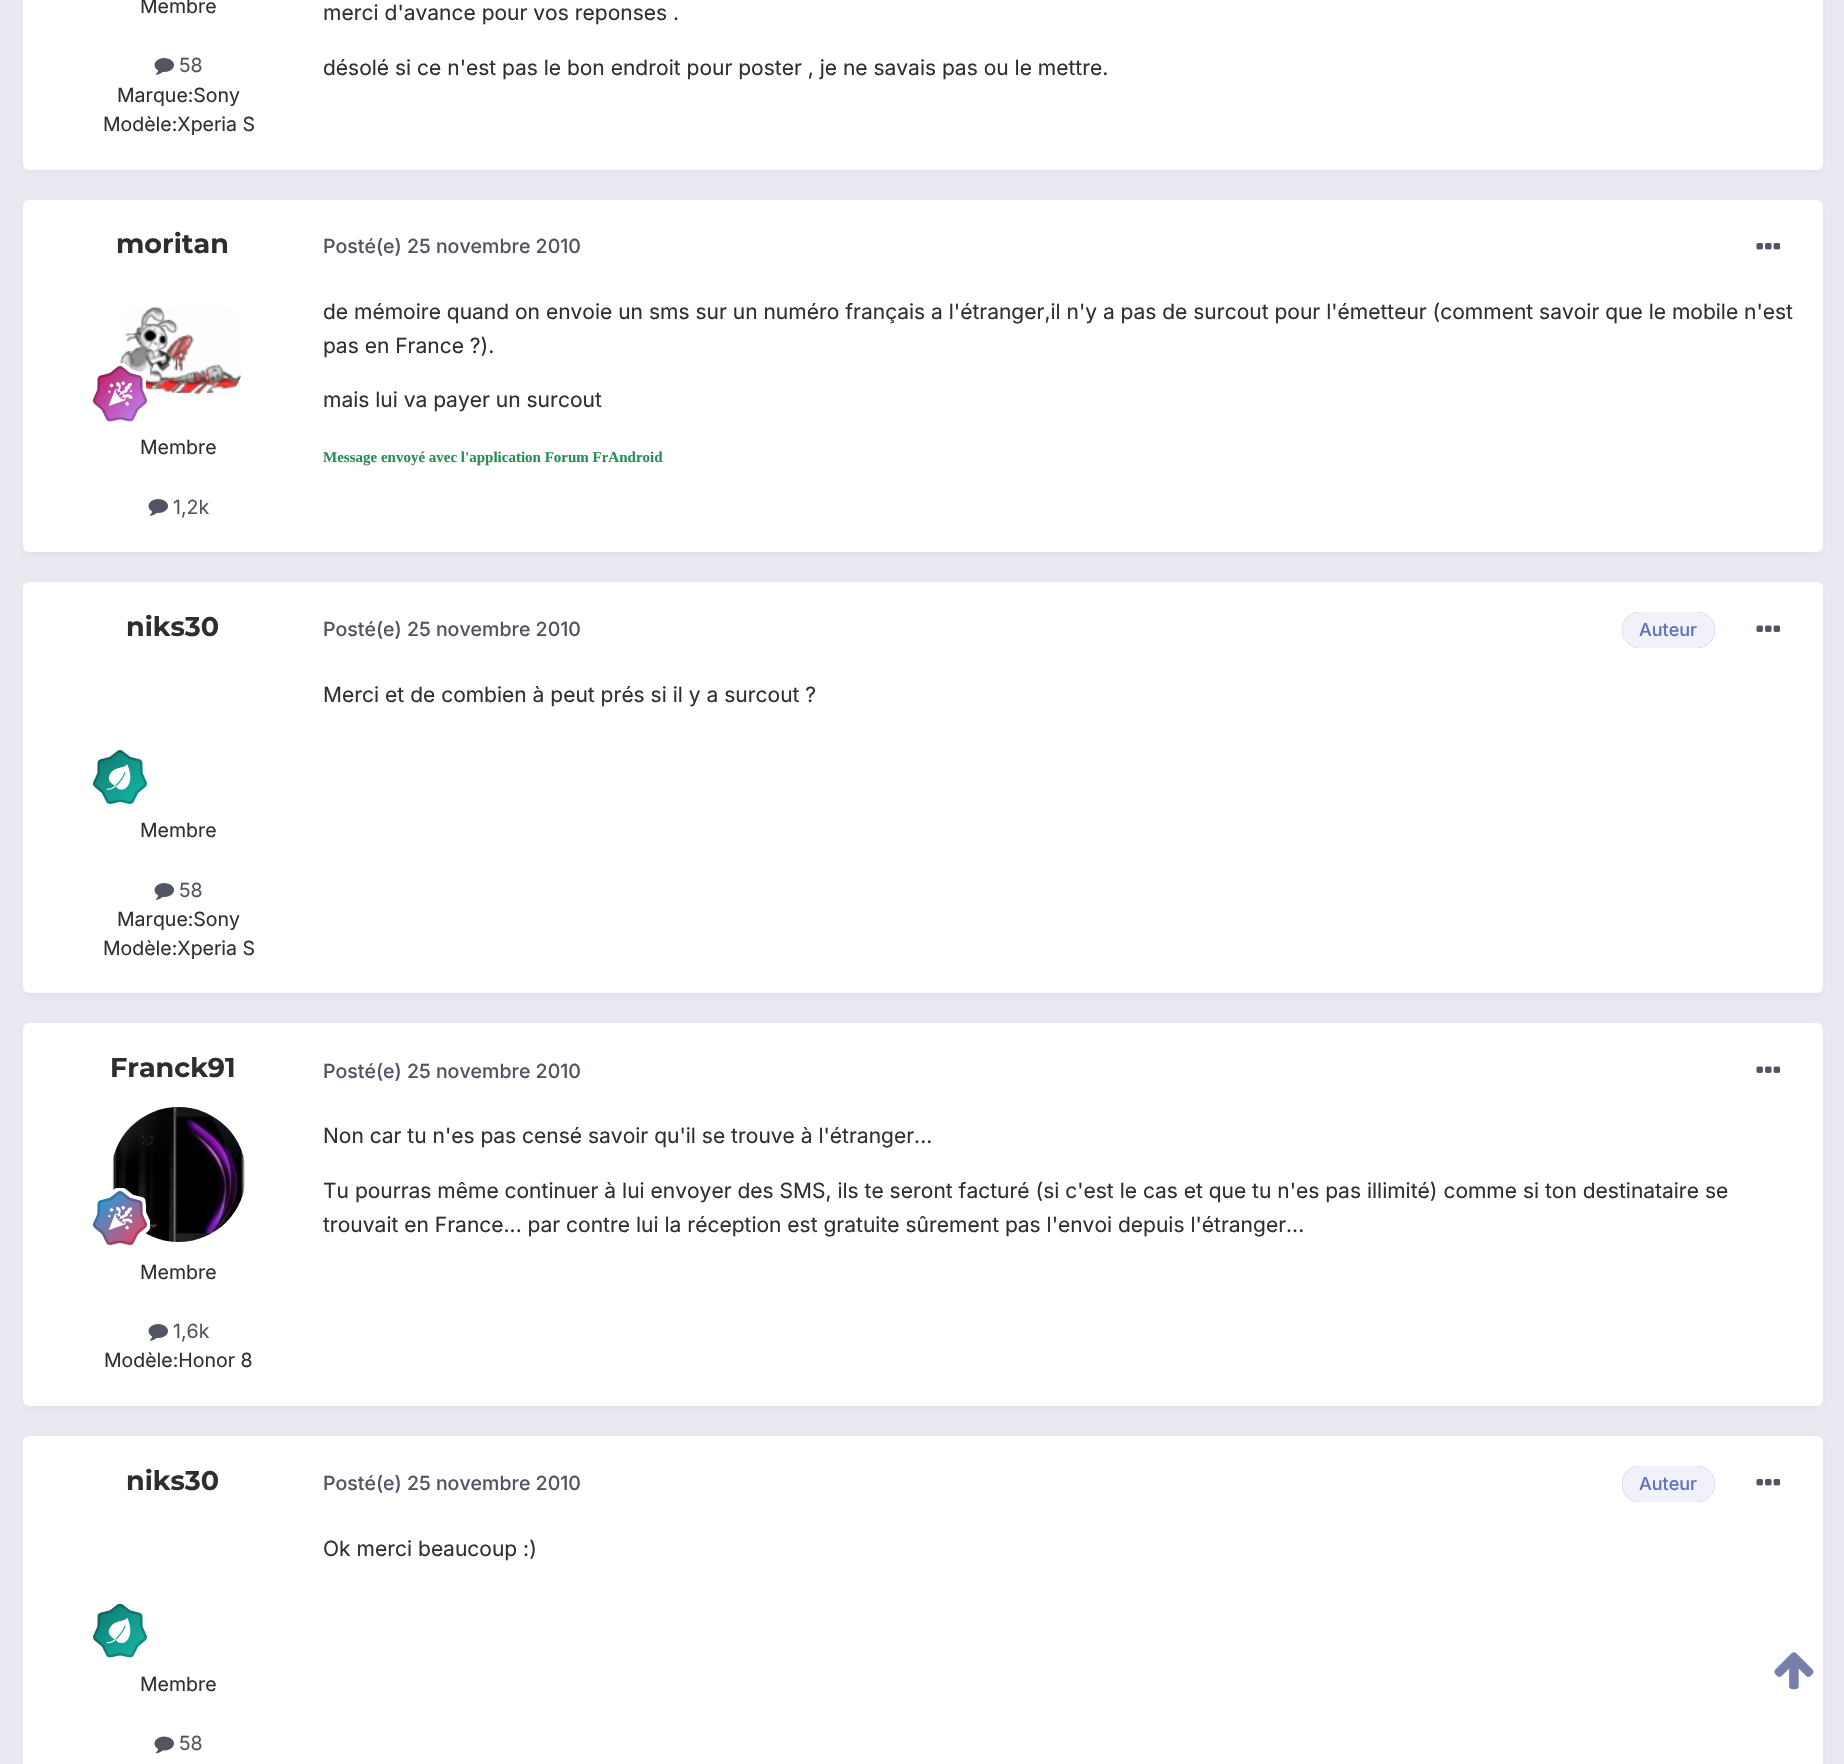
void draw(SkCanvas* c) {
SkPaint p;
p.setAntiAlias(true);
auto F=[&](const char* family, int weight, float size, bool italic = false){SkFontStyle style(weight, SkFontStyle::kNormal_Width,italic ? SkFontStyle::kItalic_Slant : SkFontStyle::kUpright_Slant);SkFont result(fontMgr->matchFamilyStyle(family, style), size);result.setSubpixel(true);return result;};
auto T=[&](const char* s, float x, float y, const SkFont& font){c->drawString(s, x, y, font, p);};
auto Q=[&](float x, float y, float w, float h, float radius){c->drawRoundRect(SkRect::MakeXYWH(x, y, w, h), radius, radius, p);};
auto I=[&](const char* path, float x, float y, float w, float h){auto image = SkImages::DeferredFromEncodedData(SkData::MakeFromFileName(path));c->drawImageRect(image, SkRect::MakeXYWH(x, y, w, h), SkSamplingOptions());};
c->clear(0xffe8e9f1);
p.setColor(0x1a787faa);
p.setMaskFilter(SkMaskFilter::MakeBlur(kNormal_SkBlurStyle, 3));
c->drawRoundRect(SkRect::MakeXYWH(24,-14,1797,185),5,5,p);
p.setMaskFilter(nullptr);
p.setColor(0xffffffff);
Q(23,-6,1800,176,6);
auto f1 = F("Inter",400,19.5);
p.setColor(0xff2e2f34);
T("Membre",140,13,f1);
I("1.png",154,58,20,17);
p.setColor(0xff515463);
T("58",179,72,f1);
p.setColor(0xff2e2f34);
T("Marque:Sony",117,102,f1);
T("Modèle:Xperia S",103,131,f1);
auto f2 = F("Inter",400,21);
T("merci d'avance pour vos reponses .",323,20,f2);
T("désolé si ce n'est pas le bon endroit pour poster , je ne savais pas ou le mettre.",323,75,f2);
p.setColor(0x1a787faa);
p.setMaskFilter(SkMaskFilter::MakeBlur(kNormal_SkBlurStyle, 3));
c->drawRoundRect(SkRect::MakeXYWH(24,204,1797,350),5,5,p);
p.setMaskFilter(nullptr);
p.setColor(0xffffffff);
Q(23,200,1800,352,6);
auto f3 = F("Montserrat",700,27);
p.setColor(0xff2e2e2e);
T("moritan",116,253,f3);
I("2.png",120,306,122,89);
I("3.png",93,363,54,59);
p.setColor(0xff2e2f34);
T("Membre",140,454,f1);
I("1.png",148,499,20,17);
p.setColor(0xff515463);
T("1,2k",173,514,f1);
auto f4 = F("Inter",500,19.5);
T("Posté(e) 25 novembre 2010",323,253,f4);
I("4.png",1756,243,25,7);
p.setColor(0xff2e2f34);
T("de mémoire quand on envoie un sms sur un numéro français a l'étranger,il n'y a pas de surcout pour l'émetteur (comment savoir que le mobile n'est",323,319,f2);
T("pas en France ?).",323,353,f2);
T("mais lui va payer un surcout",323,407,f2);
auto f5 = F("Liberation Serif",700,15);
p.setColor(0xff2e8b57);
T("Message envoyé avec l'application Forum FrAndroid",323,462,f5);
p.setColor(0x1a787faa);
p.setMaskFilter(SkMaskFilter::MakeBlur(kNormal_SkBlurStyle, 3));
c->drawRoundRect(SkRect::MakeXYWH(24,587,1797,408),5,5,p);
p.setMaskFilter(nullptr);
p.setColor(0xffffffff);
Q(23,582,1800,411,6);
p.setColor(0xff2e2e2e);
T("niks30",126,636,f3);
I("5.png",93,750,54,54);
p.setColor(0xff2e2f34);
T("Membre",140,837,f1);
I("1.png",154,883,20,17);
p.setColor(0xff515463);
T("58",179,897,f1);
p.setColor(0xff2e2f34);
T("Marque:Sony",117,926,f1);
T("Modèle:Xperia S",103,955,f1);
p.setColor(0xff515463);
T("Posté(e) 25 novembre 2010",323,636,f4);
p.setColor(0xff616fbe);
Q(1622,612,93,36,18);
p.setColor(0xe6ffffff);
Q(1622,612,93,36,18);
auto f6 = F("Inter",500,18);
p.setColor(0xff616fbe);
T("Auteur",1639,636,f6);
I("6.png",1756,625,25,7);
p.setColor(0xff2e2f34);
T("Merci et de combien à peut prés si il y a surcout ?",323,702,f2);
p.setColor(0x1a787faa);
p.setMaskFilter(SkMaskFilter::MakeBlur(kNormal_SkBlurStyle, 3));
c->drawRoundRect(SkRect::MakeXYWH(24,1028,1797,379),5,5,p);
p.setMaskFilter(nullptr);
p.setColor(0xffffffff);
Q(23,1023,1800,383,6);
p.setColor(0xff2e2e2e);
T("Franck91",110,1077,f3);
I("7.png",112,1107,133,135);
I("8.png",93,1188,57,57);
p.setColor(0xff2e2f34);
T("Membre",140,1279,f1);
I("1.png",148,1324,20,17);
p.setColor(0xff515463);
T("1,6k",173,1338,f1);
p.setColor(0xff2e2f34);
T("Modèle:Honor 8",104,1367,f1);
p.setColor(0xff515463);
T("Posté(e) 25 novembre 2010",323,1078,f4);
I("6.png",1756,1066,25,7);
p.setColor(0xff2e2f34);
T("Non car tu n'es pas censé savoir qu'il se trouve à l'étranger...",323,1143,f2);
T("Tu pourras même continuer à lui envoyer des SMS, ils te seront facturé (si c'est le cas et que tu n'es pas illimité) comme si ton destinataire se",323,1198,f2);
T("trouvait en France... par contre lui la réception est gratuite sûrement pas l'envoi depuis l'étranger...",323,1232,f2);
p.setColor(0x1a787faa);
p.setMaskFilter(SkMaskFilter::MakeBlur(kNormal_SkBlurStyle, 3));
c->drawRoundRect(SkRect::MakeXYWH(24,1440,1797,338),5,5,p);
p.setMaskFilter(nullptr);
p.setColor(0xffffffff);
Q(23,1436,1800,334,6);
p.setColor(0xff2e2e2e);
T("niks30",126,1490,f3);
I("9.png",93,1604,54,54);
p.setColor(0xff2e2f34);
T("Membre",140,1691,f1);
I("10.png",154,1736,20,18);
p.setColor(0xff515463);
T("58",179,1750,f1);
T("Posté(e) 25 novembre 2010",323,1490,f4);
p.setColor(0xff616fbe);
Q(1622,1466,93,36,18);
p.setColor(0xe6ffffff);
Q(1622,1466,93,36,18);
p.setColor(0xff616fbe);
T("Auteur",1639,1490,f6);
I("4.png",1756,1479,25,7);
p.setColor(0xff2e2f34);
T("Ok merci beaucoup :)",323,1556,f2);
I("11.png",1774,1652,40,38);
}
